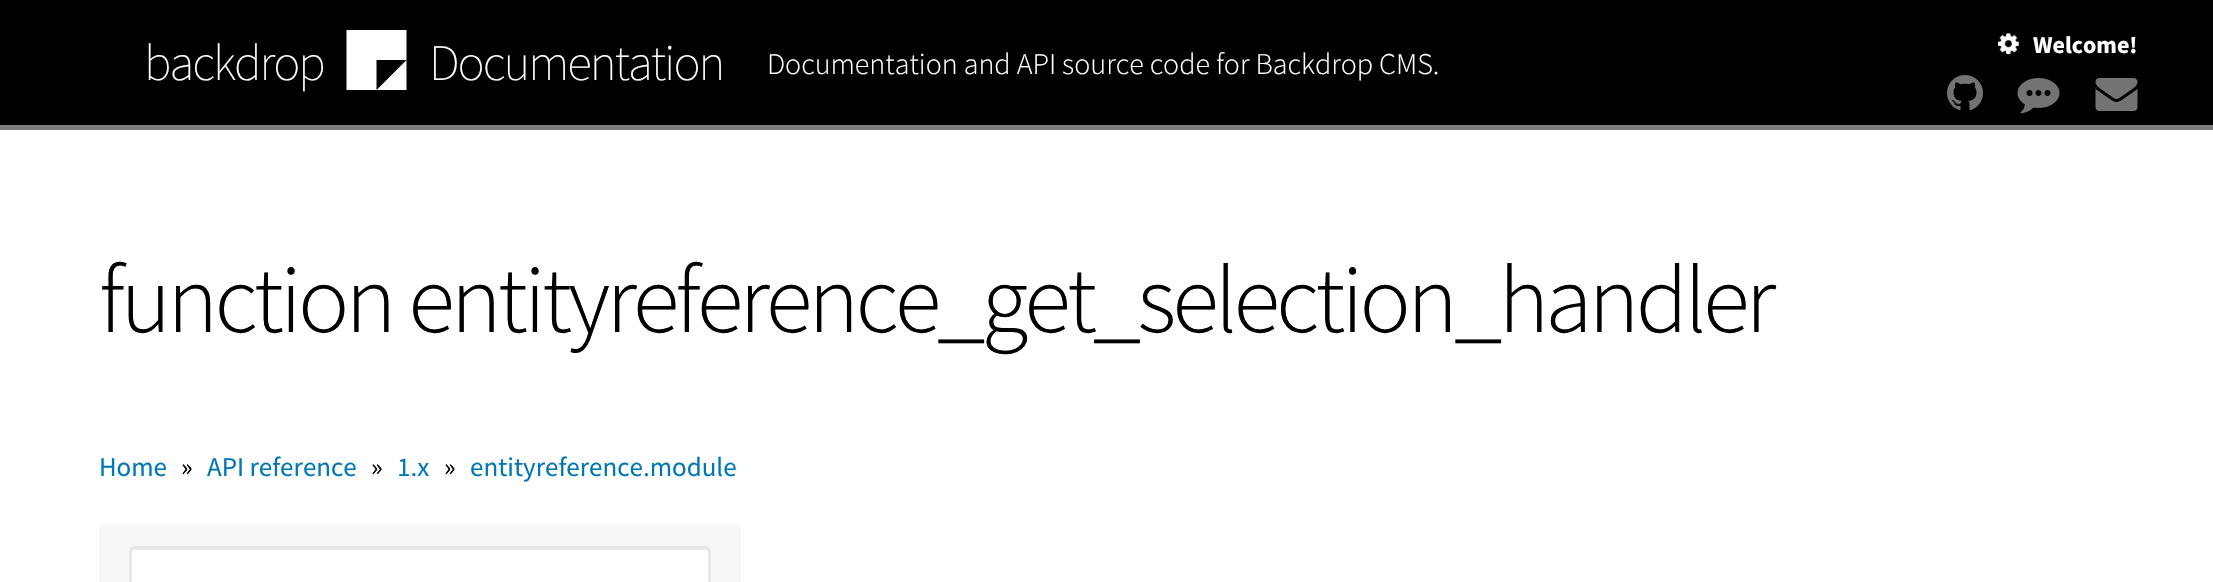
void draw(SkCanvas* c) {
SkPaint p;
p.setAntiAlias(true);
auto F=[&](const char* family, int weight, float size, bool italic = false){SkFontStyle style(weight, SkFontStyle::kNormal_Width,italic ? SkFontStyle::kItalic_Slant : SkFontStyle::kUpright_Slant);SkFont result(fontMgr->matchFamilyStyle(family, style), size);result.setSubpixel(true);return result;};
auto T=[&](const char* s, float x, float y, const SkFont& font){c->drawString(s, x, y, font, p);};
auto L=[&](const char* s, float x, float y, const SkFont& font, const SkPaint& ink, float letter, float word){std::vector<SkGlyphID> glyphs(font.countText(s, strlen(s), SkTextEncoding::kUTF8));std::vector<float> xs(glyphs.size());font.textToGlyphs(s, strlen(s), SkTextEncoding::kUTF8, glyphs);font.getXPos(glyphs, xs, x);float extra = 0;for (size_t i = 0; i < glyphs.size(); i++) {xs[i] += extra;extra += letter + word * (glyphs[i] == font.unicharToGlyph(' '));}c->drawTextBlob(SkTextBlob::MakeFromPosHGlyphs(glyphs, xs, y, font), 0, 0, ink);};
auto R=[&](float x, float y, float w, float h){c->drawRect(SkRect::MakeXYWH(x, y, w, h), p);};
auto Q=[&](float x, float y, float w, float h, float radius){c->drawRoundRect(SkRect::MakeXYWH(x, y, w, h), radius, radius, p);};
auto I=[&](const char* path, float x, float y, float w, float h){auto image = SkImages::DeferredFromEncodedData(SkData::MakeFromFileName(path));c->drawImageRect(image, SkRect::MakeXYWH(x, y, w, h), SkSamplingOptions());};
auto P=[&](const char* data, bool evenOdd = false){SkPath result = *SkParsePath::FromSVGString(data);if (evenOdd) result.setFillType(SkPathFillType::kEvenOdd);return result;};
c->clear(0xffffffff);
p.setColor(0xff000000);
R(0,0,2213,125);
p.setColor(0xff7d7d7d);
R(0,125,2213,5);
auto f1 = F("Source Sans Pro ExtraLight",200,51);
p.setColor(0xffffffff);
L("backdrop",144,80,f1,p,-2,0);
I("1.png",346,30,61,60);
L("Documentation",429,80,f1,p,-2,0);
auto f2 = F("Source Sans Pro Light",300,30);
T("Documentation and API source code for Backdrop CMS.",767,74,f2);
I("2.png",1998,33,21,22);
auto f3 = F("Source Sans Pro",700,24);
T("Welcome!",2033,53,f3);
I("3.png",1947,75,36,36);
I("4.png",2017,78,43,36);
I("5.png",2095,78,43,33);
auto f4 = F("Source Sans Pro Light",300,96);
p.setColor(0xff000000);
L("function entityreference_get_selection_handler",99,332,f4,p,-3.85,0);
auto f5 = F("Source Sans Pro",400,27);
p.setColor(0xff0078b5);
T("Home",99,476,f5);
p.setColor(0xff000000);
T("»",181,476,f5);
p.setColor(0xff0078b5);
T("API reference",207,476,f5);
p.setColor(0xff000000);
T("»",371,476,f5);
p.setColor(0xff0078b5);
T("1.x",397,476,f5);
p.setColor(0xff000000);
T("»",444,476,f5);
p.setColor(0xff0078b5);
T("entityreference.module",470,476,f5);
p.setColor(0xfff7f7f7);
R(99,524,642,58);
p.setColor(0xffffffff);
Q(129,546,582,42,6);
p.setColor(0xffececec);
c->drawPath(P("M135 550h570c2 0 3 2 3 4c0-2 0-5-3-5h-570l-2 1l-1 4c0-2 1-4 3-4z"),p);
p.setStroke(true);
p.setStrokeWidth(3);
p.setColor(0xffe8e6e5);
c->drawRoundRect(SkRect::MakeXYWH(130.5,547.5,579,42),4.5,4.5,p);
}
